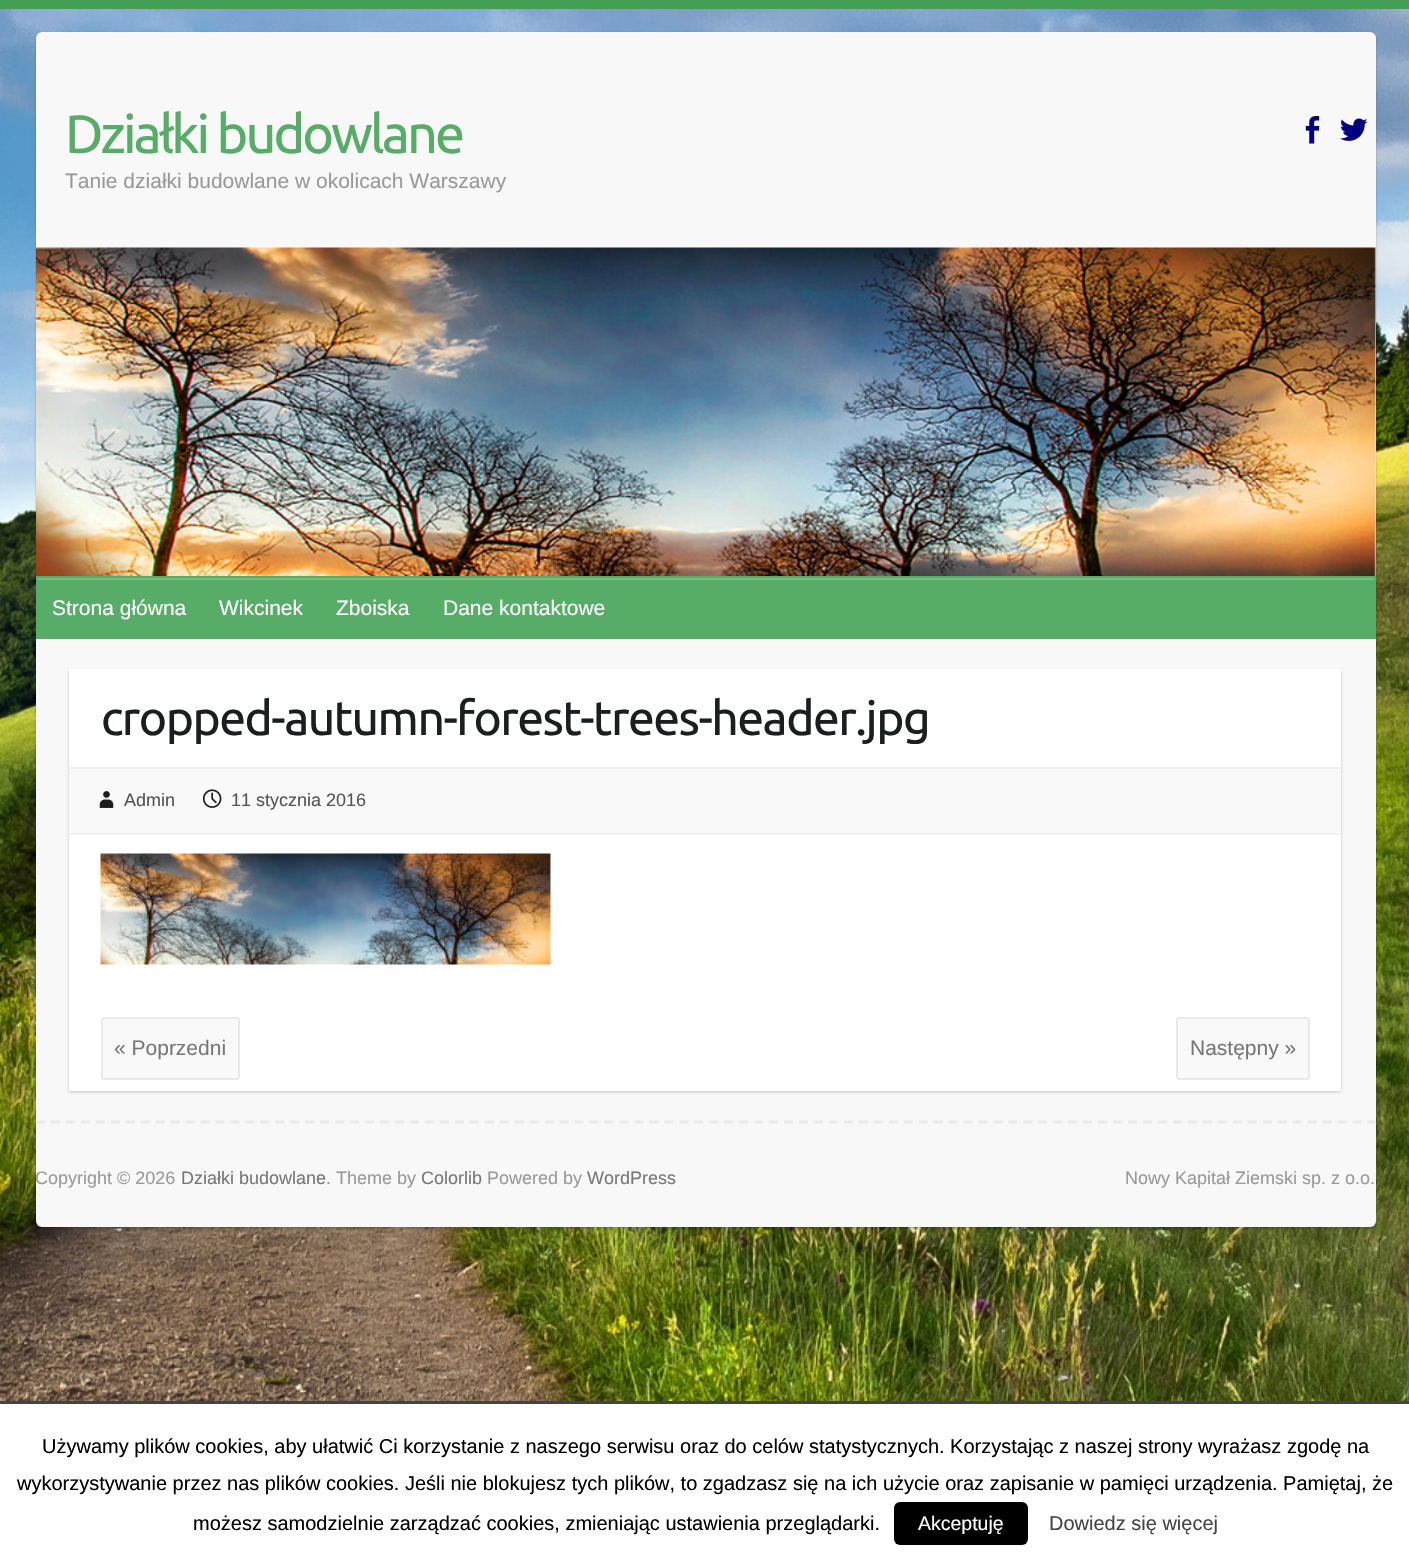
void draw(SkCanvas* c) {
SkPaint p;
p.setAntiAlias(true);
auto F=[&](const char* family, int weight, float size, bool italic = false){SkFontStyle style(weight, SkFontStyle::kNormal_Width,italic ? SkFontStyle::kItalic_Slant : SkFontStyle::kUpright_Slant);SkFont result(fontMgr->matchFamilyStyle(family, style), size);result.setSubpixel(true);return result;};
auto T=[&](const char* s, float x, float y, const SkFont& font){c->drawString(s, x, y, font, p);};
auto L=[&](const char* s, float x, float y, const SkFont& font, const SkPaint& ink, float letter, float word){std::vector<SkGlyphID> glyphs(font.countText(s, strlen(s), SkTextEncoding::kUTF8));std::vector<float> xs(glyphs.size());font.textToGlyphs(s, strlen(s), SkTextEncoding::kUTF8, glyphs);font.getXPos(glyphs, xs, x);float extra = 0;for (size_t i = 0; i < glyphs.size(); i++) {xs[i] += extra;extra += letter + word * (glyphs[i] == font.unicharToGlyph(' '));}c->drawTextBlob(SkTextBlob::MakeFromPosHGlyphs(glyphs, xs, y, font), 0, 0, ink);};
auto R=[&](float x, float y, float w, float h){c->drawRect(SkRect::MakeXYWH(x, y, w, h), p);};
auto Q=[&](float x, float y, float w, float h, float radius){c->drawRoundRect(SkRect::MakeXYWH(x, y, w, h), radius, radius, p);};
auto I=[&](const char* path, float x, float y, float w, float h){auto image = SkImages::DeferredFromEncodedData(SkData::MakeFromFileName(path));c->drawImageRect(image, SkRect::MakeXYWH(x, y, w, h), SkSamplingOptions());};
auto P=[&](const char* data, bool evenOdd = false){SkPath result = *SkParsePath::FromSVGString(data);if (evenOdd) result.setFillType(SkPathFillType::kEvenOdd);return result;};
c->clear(0xffffffff);
I("1.png",0,9,1409,1392);
p.setColor(0xff439f55);
R(0,0,1409,9);
p.setColor(0x33000000);
p.setMaskFilter(SkMaskFilter::MakeBlur(kNormal_SkBlurStyle, 1.5));
c->drawRoundRect(SkRect::MakeXYWH(36,33,1340,1196),6,6,p);
p.setMaskFilter(nullptr);
p.setColor(0xfff8f8f8);
Q(36,32,1340,1195,6);
auto f1 = F("Ubuntu",400,54);
p.setColor(0xff57ad68);
L("Działki budowlane",65,153,f1,p,-3,0);
auto f2 = F("Liberation Sans",400,21);
p.setColor(0xff999999);
T("Tanie działki budowlane w okolicach Warszawy",65,188,f2);
I("2.png",1305,116,15,28);
I("3.png",1340,118,28,23);
I("4.png",36,247,1340,329);
p.setColor(0xff57ad68);
R(36,576,1340,63);
p.setColor(0xff79bd86);
R(38,578,1336,2);
p.setColor(0xffffffff);
T("Strona główna",52,615,f2);
T("Wikcinek",219,615,f2);
T("Zboiska",336,615,f2);
T("Dane kontaktowe",443,615,f2);
p.setColor(0x33000000);
p.setMaskFilter(SkMaskFilter::MakeBlur(kNormal_SkBlurStyle, 1.5));
c->drawRect(SkRect::MakeXYWH(69,671,1272,421),p);
p.setMaskFilter(nullptr);
p.setColor(0xffffffff);
R(69,669,1272,422);
auto f3 = F("Ubuntu",400,48);
p.setColor(0xff1b1e1f);
L("cropped-autumn-forest-trees-header.jpg",101,735,f3,p,-1.5,0);
p.setColor(0xfff9f9f9);
R(69,769,1272,65);
p.setColor(0xfff0f0f0);
R(69,767,1272,2);
p.setColor(0x0a000000);
R(69,833,1272,2);
I("5.png",99,791,15,17);
auto f4 = F("Liberation Sans",400,18);
p.setColor(0xff555555);
T("Admin",124,806,f4);
I("6.png",202,789,20,19);
T("11 stycznia 2016",231,806,f4);
I("7.png",100,853,451,112);
p.setColor(0xfff9f9f9);
c->drawRoundRect(SkRect::MakeXYWH(102,1018,137,61),2,2,p);
p.setStroke(true);
p.setStrokeWidth(2);
p.setColor(0xffeaeaea);
c->drawRoundRect(SkRect::MakeXYWH(102,1018,137,61),2,2,p);
p.setStroke(false);
p.setColor(0xff777777);
T("« Poprzedni",114,1055,f2);
p.setColor(0xfff9f9f9);
c->drawRoundRect(SkRect::MakeXYWH(1177,1018,132,61),2,2,p);
p.setStroke(true);
p.setColor(0xffeaeaea);
c->drawRoundRect(SkRect::MakeXYWH(1177,1018,132,61),2,2,p);
p.setStroke(false);
p.setColor(0xff777777);
T("Następny »",1190,1055,f2);
p.setStroke(true);
p.setStrokeWidth(3);
p.setColor(0xffeaeaea);
p.setPathEffect(SkDashPathEffect::Make({{9,5.96f}}, 0));
c->drawPath(P("M36 1122h1339.5"),p);
p.setPathEffect(nullptr);
p.setStroke(false);
p.setColor(0xff999999);
T("Copyright © 2026",35,1184,f4);
p.setColor(0xff777777);
T("Działki budowlane",181,1184,f4);
p.setColor(0xff999999);
T(". Theme by",326,1184,f4);
p.setColor(0xff777777);
T("Colorlib",421,1184,f4);
p.setColor(0xff999999);
T("Powered by",487,1184,f4);
p.setColor(0xff777777);
T("WordPress",587,1184,f4);
p.setColor(0xff999999);
T("Nowy Kapitał Ziemski sp. z o.o.",1125,1184,f4);
p.setColor(0xff444444);
R(0,1401,1409,3);
auto f5 = F("Liberation Sans",400,20);
p.setColor(0xff000000);
T("Używamy plików cookies, aby ułatwić Ci korzystanie z naszego serwisu oraz do celów statystycznych. Korzystając z naszej strony wyrażasz zgodę na",42,1453,f5);
T("wykorzystywanie przez nas plików cookies. Jeśli nie blokujesz tych plików, to zgadzasz się na ich użycie oraz zapisanie w pamięci urządzenia. Pamiętaj, że",17,1490,f5);
T("możesz samodzielnie zarządzać cookies, zmieniając ustawienia przeglądarki.",193,1530,f5);
Q(894,1502,134,43,6);
auto f6 = F("Liberation Sans",400,19.5);
p.setColor(0xffffffff);
T("Akceptuję",918,1530,f6);
p.setColor(0xff444444);
T("Dowiedz się więcej",1049,1530,f5);
}
